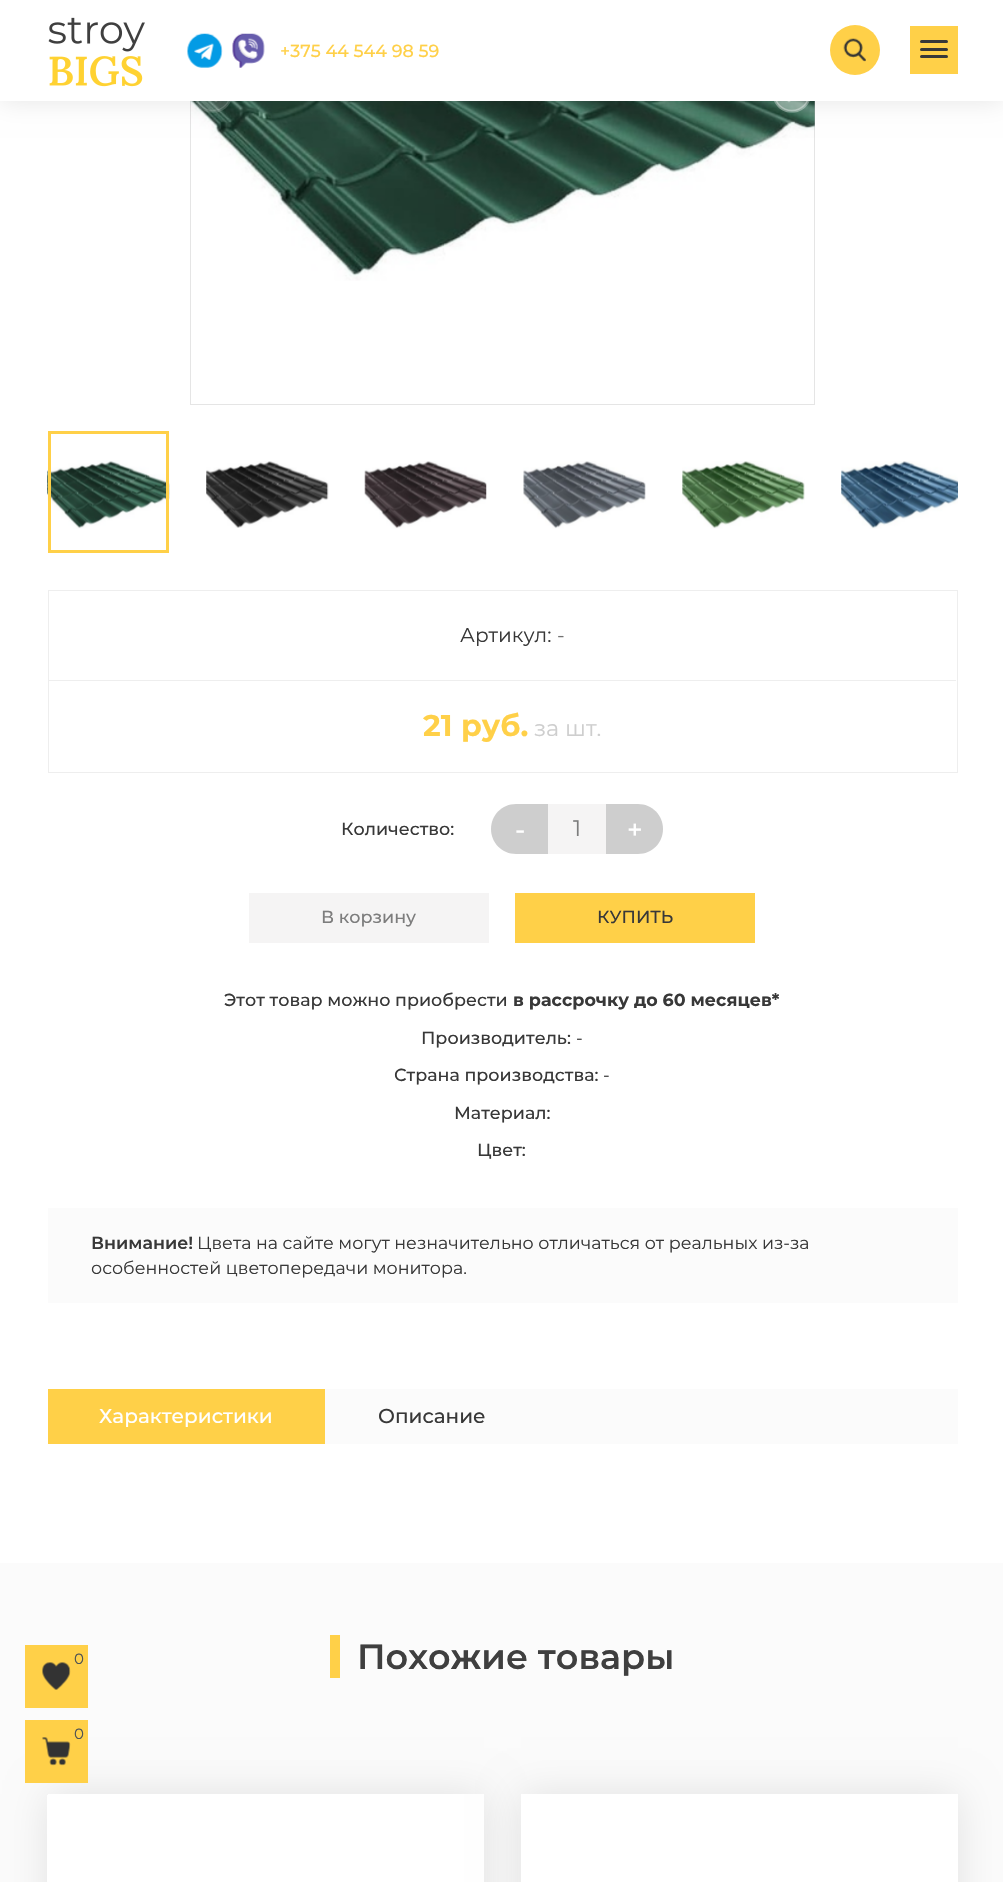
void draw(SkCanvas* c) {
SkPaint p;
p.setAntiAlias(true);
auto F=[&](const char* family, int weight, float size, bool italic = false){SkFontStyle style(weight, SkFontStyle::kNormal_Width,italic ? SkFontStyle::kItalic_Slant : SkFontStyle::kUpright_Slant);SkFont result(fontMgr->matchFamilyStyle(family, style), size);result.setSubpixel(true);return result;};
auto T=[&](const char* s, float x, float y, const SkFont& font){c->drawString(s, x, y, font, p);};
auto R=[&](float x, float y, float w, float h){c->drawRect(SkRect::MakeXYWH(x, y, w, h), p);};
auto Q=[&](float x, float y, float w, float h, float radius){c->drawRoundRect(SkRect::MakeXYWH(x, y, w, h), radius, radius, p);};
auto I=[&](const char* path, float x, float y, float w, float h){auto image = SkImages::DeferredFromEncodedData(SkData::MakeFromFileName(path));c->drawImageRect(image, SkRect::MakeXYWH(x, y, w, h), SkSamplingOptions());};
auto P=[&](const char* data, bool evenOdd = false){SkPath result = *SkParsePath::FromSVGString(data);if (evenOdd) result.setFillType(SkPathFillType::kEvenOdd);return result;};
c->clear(0xffffffff);
I("5.png",190,101,625,180);
p.setStroke(true);
p.setStrokeWidth(1);
p.setColor(0x1a000000);
c->drawRect(SkRect::MakeXYWH(190.5,-.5,624,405),p);
I("6.png",195,101,36,12);
I("7.png",774,101,36,12);
p.setStroke(false);
p.setMaskFilter(SkMaskFilter::MakeBlur(kNormal_SkBlurStyle, 12.5));
c->drawRect(SkRect::MakeXYWH(0,0,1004,101),p);
p.setMaskFilter(nullptr);
p.setColor(0xffffffff);
R(0,0,1003,101);
I("1.png",48,17,97,70);
I("2.png",187,33,36,35);
I("3.png",232,33,33,35);
auto f1 = F("Montserrat",500,17.5);
p.setColor(0xffffd048);
T("+375 44 544 98 59",280,57,f1);
c->drawCircle(855,50,25,p);
I("4.png",843,38,23,24);
R(910,26,48,48);
p.setColor(0xff383838);
Q(920,48,28,3,1.5);
Q(920,40,28,3,1.5);
Q(920,55,28,3,1.5);
I("8.png",47,460,123,69);
p.setStroke(true);
p.setStrokeWidth(3);
p.setColor(0xffffd048);
c->drawRect(SkRect::MakeXYWH(49.5,432.5,118,119),p);
I("9.png",206,461,123,67);
I("10.png",364,461,123,68);
I("11.png",523,461,123,68);
I("12.png",682,461,123,68);
I("13.png",841,461,117,68);
p.setStrokeWidth(1);
p.setColor(0xffeeeeee);
c->drawRect(SkRect::MakeXYWH(48.5,590.5,909,182),p);
p.setStroke(false);
R(49,680,907,1);
auto f2 = F("Montserrat",400,20);
p.setColor(0xff383838);
T("Артикул:",460,642,f2);
p.setColor(0xff727272);
T("-",557,642,f2);
auto f3 = F("Montserrat",700,30);
p.setColor(0xffffd048);
T("21 руб.",423,736,f3);
auto f4 = F("Montserrat",400,22.5);
p.setColor(0xffcecece);
T("за шт.",534,736,f4);
p.setColor(0xff383838);
T("Количество:",341,835,f1);
p.setColor(0xffcecece);
c->drawPath(P("M516 804h32v50h-32c-14 0-25-11-25-25c0-14 11-25 25-25z"),p);
auto f5 = F("Montserrat",500,27);
p.setColor(0xffffffff);
T("-",515,839,f5);
p.setColor(0xfff5f4f4);
R(548,804,58,50);
p.setColor(0xff7d7d7d);
T("1",573,836,f4);
p.setColor(0xffcecece);
c->drawPath(P("M606 804h32c14 0 25 11 25 25c0 14-11 25-25 25h-32z"),p);
p.setColor(0xffffffff);
T("+",627,839,f5);
p.setColor(0xfff5f4f4);
R(249,893,240,50);
p.setColor(0xff7d7d7d);
T("В корзину",321,923,f1);
p.setColor(0xffffd048);
R(515,893,240,50);
p.setColor(0xff383838);
T("КУПИТЬ",597,923,f1);
T("Этот товар можно приобрести",224,1006,f1);
auto f6 = F("Montserrat",700,17.5);
T("в рассрочку до 60 месяцев*",513,1006,f6);
T("Производитель:",421,1044,f1);
auto f7 = F("Montserrat",400,17.5);
T("-",576,1044,f7);
T("Страна производства:",394,1081,f1);
T("-",603,1081,f7);
T("Материал:",454,1119,f1);
T("Цвет:",477,1156,f1);
p.setColor(0xfffbfbfb);
R(48,1208,910,95);
auto f8 = F("Montserrat",600,17.5);
p.setColor(0xff383838);
T("Внимание!",91,1249,f8);
T("Цвета на сайте могут незначительно отличаться от реальных из-за",197,1249,f7);
T("особенностей цветопередачи монитора.",91,1274,f7);
p.setColor(0xfffbfbfb);
R(325,1389,633,55);
p.setColor(0xffffd048);
R(48,1389,277,55);
auto f9 = F("Montserrat",500,20);
p.setColor(0xffffffff);
T("Характеристики",99,1423,f9);
p.setColor(0xff383838);
T("Описание",378,1423,f9);
p.setColor(0xfffbfbfb);
R(0,1563,1003,319);
auto f10 = F("Montserrat",600,35);
p.setColor(0xff3f3f3f);
T("Похожие товары",357,1669,f10);
p.setColor(0xffffd048);
R(330,1635,10,43);
p.setColor(0x1a000000);
p.setMaskFilter(SkMaskFilter::MakeBlur(kNormal_SkBlurStyle, 19));
c->drawRect(SkRect::MakeXYWH(48,1794,436,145),p);
p.setMaskFilter(nullptr);
p.setColor(0xffffffff);
R(48,1794,436,88);
R(47,1795,1,87);
p.setColor(0x1a000000);
p.setMaskFilter(SkMaskFilter::MakeBlur(kNormal_SkBlurStyle, 19));
c->drawRect(SkRect::MakeXYWH(521,1794,437,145),p);
p.setMaskFilter(nullptr);
p.setColor(0xffffffff);
R(521,1794,437,88);
p.setColor(0xffffd048);
R(25,1645,63,63);
auto f11 = F("Montserrat",400,15);
p.setColor(0xff4f5354);
T("0",74,1664,f11);
I("14.png",42,1662,29,28);
p.setColor(0xffffd048);
R(25,1720,63,63);
p.setColor(0xff4f5354);
T("0",74,1739,f11);
I("15.png",42,1737,29,29);
}
